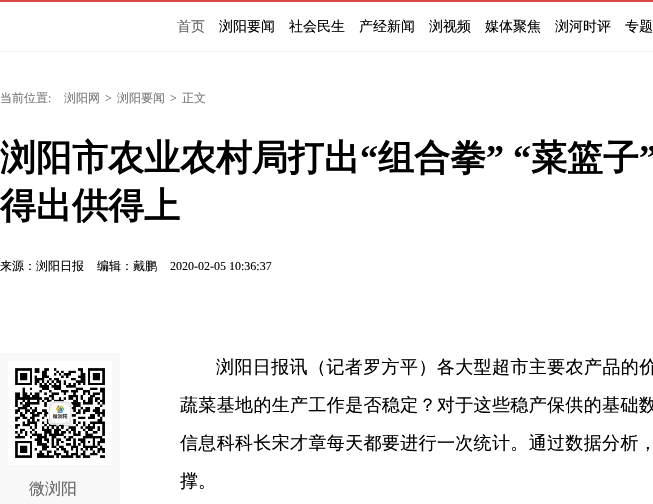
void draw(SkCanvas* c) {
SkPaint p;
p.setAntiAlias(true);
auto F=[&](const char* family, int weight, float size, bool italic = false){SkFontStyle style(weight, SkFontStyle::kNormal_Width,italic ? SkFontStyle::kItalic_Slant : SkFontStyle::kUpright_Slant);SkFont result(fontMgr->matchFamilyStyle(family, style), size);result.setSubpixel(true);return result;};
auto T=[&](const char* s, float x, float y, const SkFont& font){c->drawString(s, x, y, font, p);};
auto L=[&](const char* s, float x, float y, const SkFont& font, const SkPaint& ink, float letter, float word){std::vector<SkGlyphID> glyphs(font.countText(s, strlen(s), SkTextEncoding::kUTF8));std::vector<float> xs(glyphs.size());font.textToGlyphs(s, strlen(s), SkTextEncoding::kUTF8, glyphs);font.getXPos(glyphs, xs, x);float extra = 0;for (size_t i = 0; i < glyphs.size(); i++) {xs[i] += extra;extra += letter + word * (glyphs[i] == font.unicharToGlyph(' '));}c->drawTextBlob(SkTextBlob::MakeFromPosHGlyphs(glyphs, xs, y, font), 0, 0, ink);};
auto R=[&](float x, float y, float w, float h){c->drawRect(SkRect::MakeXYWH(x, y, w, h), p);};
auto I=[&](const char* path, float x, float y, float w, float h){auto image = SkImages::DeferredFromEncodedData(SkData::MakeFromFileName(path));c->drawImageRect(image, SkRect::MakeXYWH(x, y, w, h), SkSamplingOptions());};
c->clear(0xffffffff);
p.setColor(0xffda4747);
R(0,0,653,2);
p.setColor(0xfff1f1f1);
R(0,51,653,1);
auto f1 = F("WenQuanYi Zen Hei",500,14);
p.setColor(0xff666666);
T("首页",177,31,f1);
p.setColor(0xff000000);
T("浏阳要闻",219,31,f1);
T("社会民生",289,31,f1);
T("产经新闻",359,31,f1);
T("浏视频",429,31,f1);
T("媒体聚焦",485,31,f1);
T("浏河时评",555,31,f1);
T("专题",625,31,f1);
auto f2 = F("WenQuanYi Zen Hei",500,12);
p.setColor(0xff777777);
T("当前位置",0,102,f2);
auto f3 = F("Liberation Serif",400,12);
T(":",48,102,f3);
T("浏阳网",64,102,f2);
T(">",105,102,f3);
T("浏阳要闻",117,102,f2);
T(">",170,102,f3);
T("正文",182,102,f2);
auto f4 = F("WenQuanYi Zen Hei",700,36);
p.setColor(0xff000000);
T("浏阳市农业农村局打出",0,170,f4);
auto f5 = F("Liberation Serif",700,36);
T("“",360,170,f5);
T("组合拳",378,170,f4);
T("” “",486,170,f5);
T("菜篮子",531,170,f4);
T("”",639,170,f5);
T("得出供得上",0,218,f4);
T("来源：浏阳日报",0,270,f2);
T("编辑：戴鹏",97,270,f2);
T("2020-02-05 10:36:37",170,270,f3);
p.setColor(0xfff8f8f8);
R(0,353,120,151);
I("1.png",8,361,104,104);
auto f6 = F("WenQuanYi Zen Hei",500,16);
p.setColor(0xff666666);
T("微浏阳",29,494,f6);
auto f7 = F("WenQuanYi Zen Hei",500,18);
p.setColor(0xff000000);
L("浏阳日报讯（记者罗方平）各大型超市主要农产品的价",216,373,f7,p,.4,0);
L("蔬菜基地的生产工作是否稳定？对于这些稳产保供的基础数",180,411,f7,p,.35,0);
L("信息科科长宋才章每天都要进行一次统计。通过数据分析，",180,449,f7,p,.35,0);
T("撑。",180,487,f7);
}
